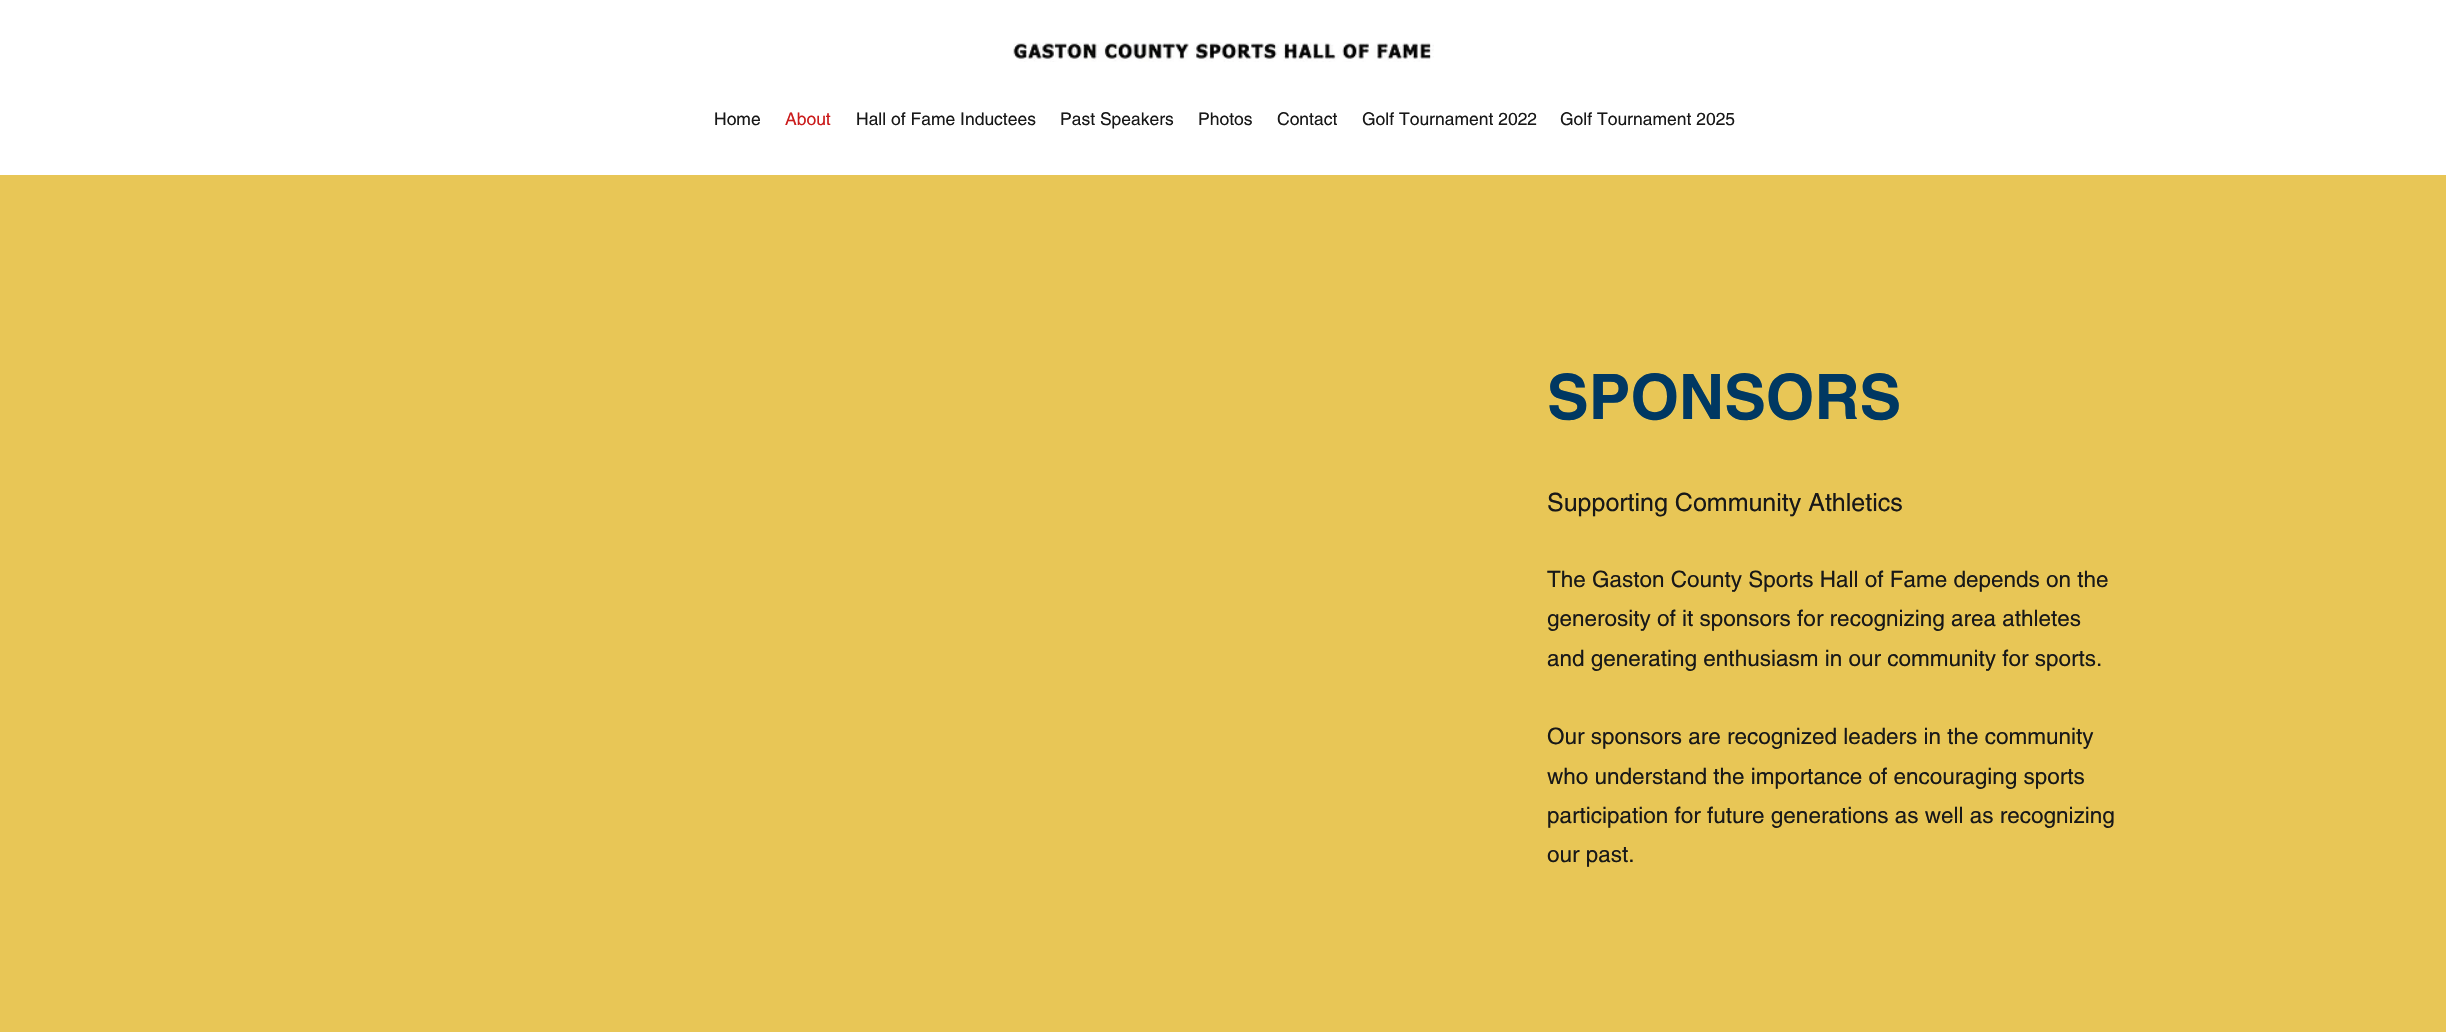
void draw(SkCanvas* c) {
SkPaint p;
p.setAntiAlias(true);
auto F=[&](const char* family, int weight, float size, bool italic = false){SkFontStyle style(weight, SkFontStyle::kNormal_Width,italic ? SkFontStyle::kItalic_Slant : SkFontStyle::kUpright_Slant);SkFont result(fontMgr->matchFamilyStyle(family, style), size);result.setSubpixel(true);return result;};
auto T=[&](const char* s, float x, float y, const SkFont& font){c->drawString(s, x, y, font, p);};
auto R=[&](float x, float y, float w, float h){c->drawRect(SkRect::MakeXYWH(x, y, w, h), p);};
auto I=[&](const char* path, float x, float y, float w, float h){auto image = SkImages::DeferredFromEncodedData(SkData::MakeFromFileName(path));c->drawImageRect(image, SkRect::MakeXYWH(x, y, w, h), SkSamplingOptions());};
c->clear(0xffffffff);
I("1.png",1013,42,421,20);
auto f1 = F("helvetica",400,17.5);
p.setColor(0xff181818);
T("Home",714,125,f1);
p.setColor(0xffcb1c1c);
T("About",785,125,f1);
p.setColor(0xff181818);
T("Hall of Fame Inductees",856,125,f1);
T("Past Speakers",1060,125,f1);
T("Photos",1198,125,f1);
T("Contact",1277,125,f1);
T("Golf Tournament 2022",1362,125,f1);
T("Golf Tournament 2025",1560,125,f1);
p.setColor(0xffe8c656);
R(0,175,2446,857);
auto f2 = F("helvetica",700,62.5);
p.setColor(0xff003862);
T("SPONSORS",1547,419,f2);
auto f3 = F("helvetica",400,25);
p.setColor(0xff181818);
T("Supporting Community Athletics",1547,511,f3);
auto f4 = F("helvetica",400,22.5);
T("The Gaston County Sports Hall of Fame depends on the",1547,587,f4);
T("generosity of it sponsors for recognizing area athletes",1547,626,f4);
T("and generating enthusiasm in our community for sports.",1547,666,f4);
T("Our sponsors are recognized leaders in the community",1547,744,f4);
T("who understand the importance of encouraging sports",1547,784,f4);
T("participation for future generations as well as recognizing",1547,823,f4);
T("our past.",1547,862,f4);
}
